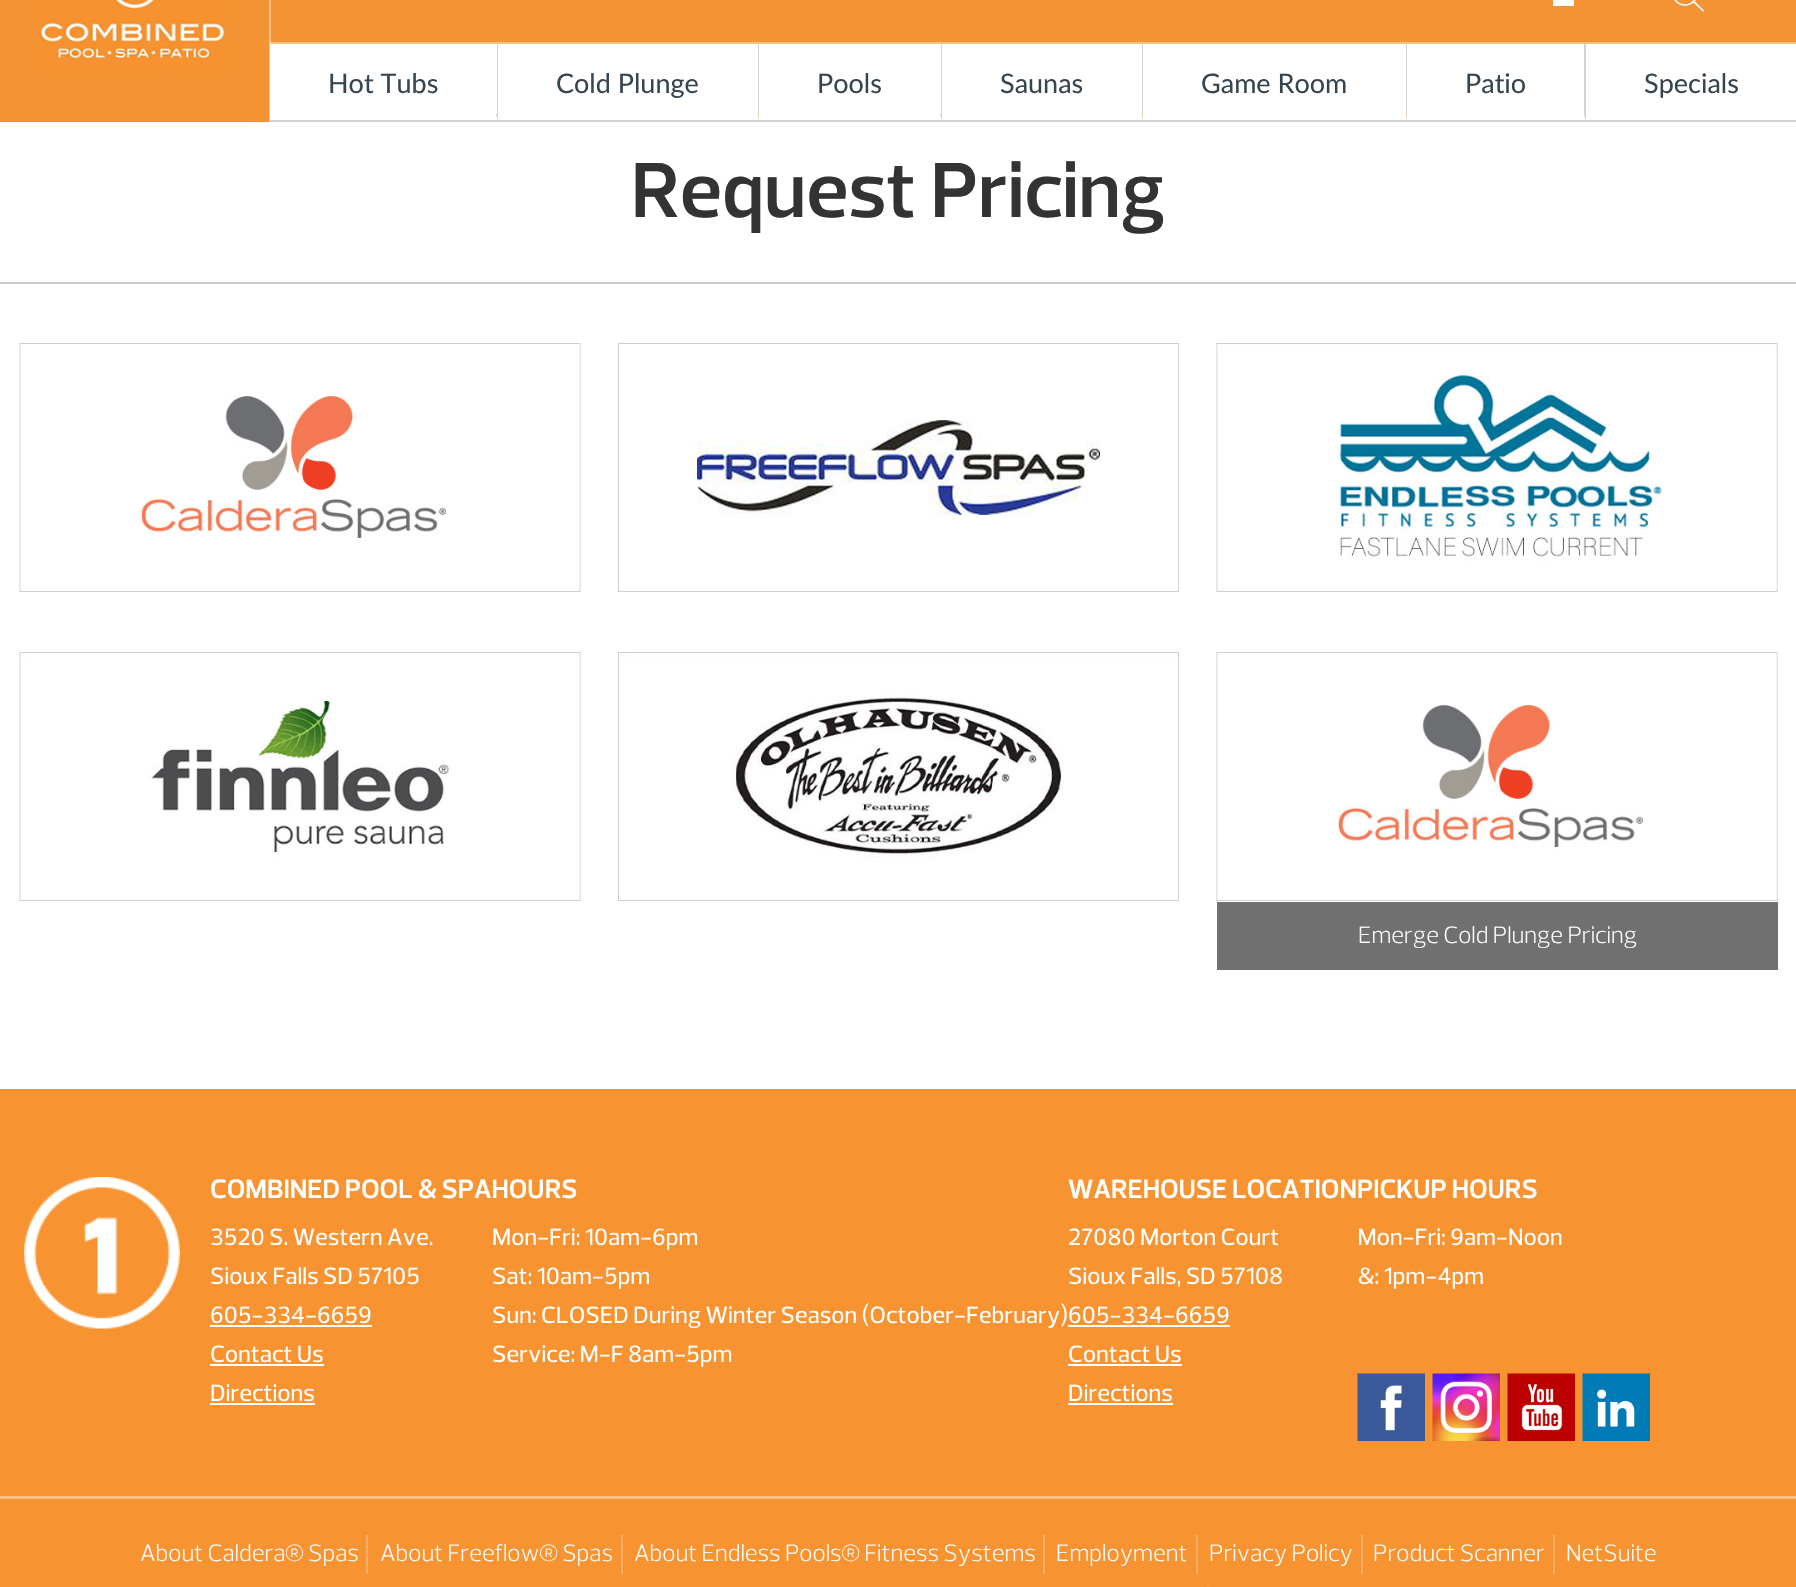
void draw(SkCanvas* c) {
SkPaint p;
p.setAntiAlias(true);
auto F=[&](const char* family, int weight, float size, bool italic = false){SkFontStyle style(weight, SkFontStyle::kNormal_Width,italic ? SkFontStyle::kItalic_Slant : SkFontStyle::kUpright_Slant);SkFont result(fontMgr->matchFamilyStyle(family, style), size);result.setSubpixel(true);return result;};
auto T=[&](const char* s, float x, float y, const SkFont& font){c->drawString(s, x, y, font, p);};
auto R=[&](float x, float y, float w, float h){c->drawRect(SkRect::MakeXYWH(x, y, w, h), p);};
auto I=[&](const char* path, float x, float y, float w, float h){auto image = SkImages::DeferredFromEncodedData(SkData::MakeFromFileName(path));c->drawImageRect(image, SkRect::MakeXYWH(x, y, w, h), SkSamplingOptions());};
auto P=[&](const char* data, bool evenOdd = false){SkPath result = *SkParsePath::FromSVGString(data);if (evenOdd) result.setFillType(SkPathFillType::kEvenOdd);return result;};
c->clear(0xffffffff);
p.setColor(0xfff49334);
R(0,0,1796,122);
p.setColor(0xfff8be85);
R(270,42,1526,2);
R(269,0,2,122);
p.setColor(0xfffbd8b6);
R(270,42,1,2);
I("1.png",38,0,191,75);
p.setColor(0xffffffff);
R(1553,0,21,6);
p.setStroke(true);
p.setStrokeWidth(1.7);
p.setStrokeCap(SkPaint::kSquare_Cap);
c->drawPath(P("M1703 10.5l-9.5-9"),p);
p.setStrokeCap(SkPaint::kButt_Cap);
c->drawCircle(1685,-7,12,p);
p.setStroke(false);
p.setColor(0xffd3d3d3);
R(270,120,1526,2);
c->drawPath(P("M498 44v76l-2-6v-70z"),p);
p.setColor(0xffffffff);
c->drawPath(P("M498 120h-228v-6h226z"),p);
R(270,44,227,70);
auto f1 = F("Lato",400,27);
p.setColor(0xff36454f);
T("Hot Tubs",328,93,f1);
p.setColor(0xffd3d3d3);
c->drawPath(P("M759 44v76l-1-6v-70z"),p);
p.setColor(0xffffffff);
c->drawPath(P("M759 120h-261v-6h260z"),p);
R(498,44,260,70);
p.setColor(0xff36454f);
T("Cold Plunge",556,93,f1);
p.setColor(0xffd3d3d3);
c->drawPath(P("M942 44v76l-2-6v-70z"),p);
p.setColor(0xffffffff);
c->drawPath(P("M942 120h-183v-6h181z"),p);
R(759,44,182,70);
p.setColor(0xff36454f);
T("Pools",817,93,f1);
p.setColor(0xffd3d3d3);
c->drawPath(P("M1143 44v76l-1-6v-70z"),p);
p.setColor(0xffffffff);
c->drawPath(P("M1143 120h-201v-6h200z"),p);
R(942,44,200,70);
p.setColor(0xff36454f);
T("Saunas",1000,93,f1);
p.setColor(0xffd3d3d3);
c->drawPath(P("M1407 44v76l-1-6v-70z"),p);
p.setColor(0xffffffff);
c->drawPath(P("M1407 120h-264v-6h263z"),p);
R(1143,44,263,70);
p.setColor(0xff36454f);
T("Game Room",1201,93,f1);
p.setColor(0xffd3d3d3);
c->drawPath(P("M1586 44v76l-2-6v-70z"),p);
p.setColor(0xffffffff);
c->drawPath(P("M1586 120h-179v-6h177z"),p);
R(1407,44,177,70);
p.setColor(0xff36454f);
T("Patio",1465,93,f1);
p.setColor(0xffffffff);
R(1586,44,210,76);
p.setColor(0xff36454f);
T("Specials",1644,93,f1);
p.setColor(0xffcccccc);
R(0,282,1796,2);
auto f2 = F("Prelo",600,79.5);
p.setColor(0xff333333);
T("Request Pricing",631,217,f2);
I("2.png",19,343,562,249);
I("3.png",618,343,561,249);
I("4.png",1216,343,562,249);
I("5.png",19,652,562,249);
I("6.png",618,652,561,249);
I("7.png",1216,652,562,249);
p.setColor(0xff707070);
R(1217,902,561,68);
auto f3 = F("Prelo",300,24);
p.setColor(0xffffffff);
T("Emerge Cold Plunge Pricing",1358,943,f3);
p.setColor(0xfff79331);
R(0,1089,1796,498);
I("8.png",24,1177,156,152);
auto f4 = F("Prelo",600,27);
p.setColor(0xffffffff);
T("COMBINED POOL & SPAHOURS",210,1198,f4);
I("9.png",211,1228,222,18);
I("10.png",211,1267,208,18);
I("11.png",211,1306,160,18);
R(210,1325,162,2);
I("12.png",211,1345,112,18);
R(210,1364,114,2);
I("13.png",211,1384,103,18);
R(210,1403,105,2);
T("WAREHOUSE LOCATIONPICKUP HOURS",1068,1198,f4);
I("14.png",1069,1228,210,18);
I("15.png",1069,1267,213,21);
I("11.png",1069,1306,160,18);
R(1068,1325,162,2);
I("12.png",1069,1345,112,18);
R(1068,1364,114,2);
I("13.png",1069,1384,103,18);
R(1068,1403,105,2);
I("16.png",493,1228,205,22);
I("17.png",493,1267,156,22);
I("18.png",493,1303,574,25);
I("19.png",493,1345,239,22);
I("20.png",1359,1228,203,18);
I("21.png",1358,1267,125,22);
I("22.png",1357,1373,68,68);
I("23.png",1432,1373,68,68);
I("24.png",1507,1373,68,68);
I("25.png",1582,1373,68,68);
p.setColor(0xfffabe83);
R(0,1496,1796,3);
p.setColor(0xfff9ae65);
R(366,1535,2,39);
p.setColor(0xffffffff);
T("About Caldera® Spas",140,1561,f3);
p.setColor(0xfff9ae65);
R(621,1535,2,39);
p.setColor(0xffffffff);
T("About Freeflow® Spas",380,1561,f3);
p.setColor(0xfff9ae65);
R(1043,1535,2,39);
p.setColor(0xffffffff);
T("About Endless Pools® Fitness Systems",634,1561,f3);
p.setColor(0xfff9ae65);
R(1196,1535,2,39);
p.setColor(0xffffffff);
T("Employment",1056,1561,f3);
p.setColor(0xfff9ae65);
R(1361,1535,2,39);
p.setColor(0xffffffff);
T("Privacy Policy",1209,1561,f3);
p.setColor(0xfff9ae65);
R(1553,1535,2,39);
p.setColor(0xffffffff);
T("Product Scanner",1373,1561,f3);
T("NetSuite",1566,1561,f3);
I("26.png",1206,1586,3,1);
}
